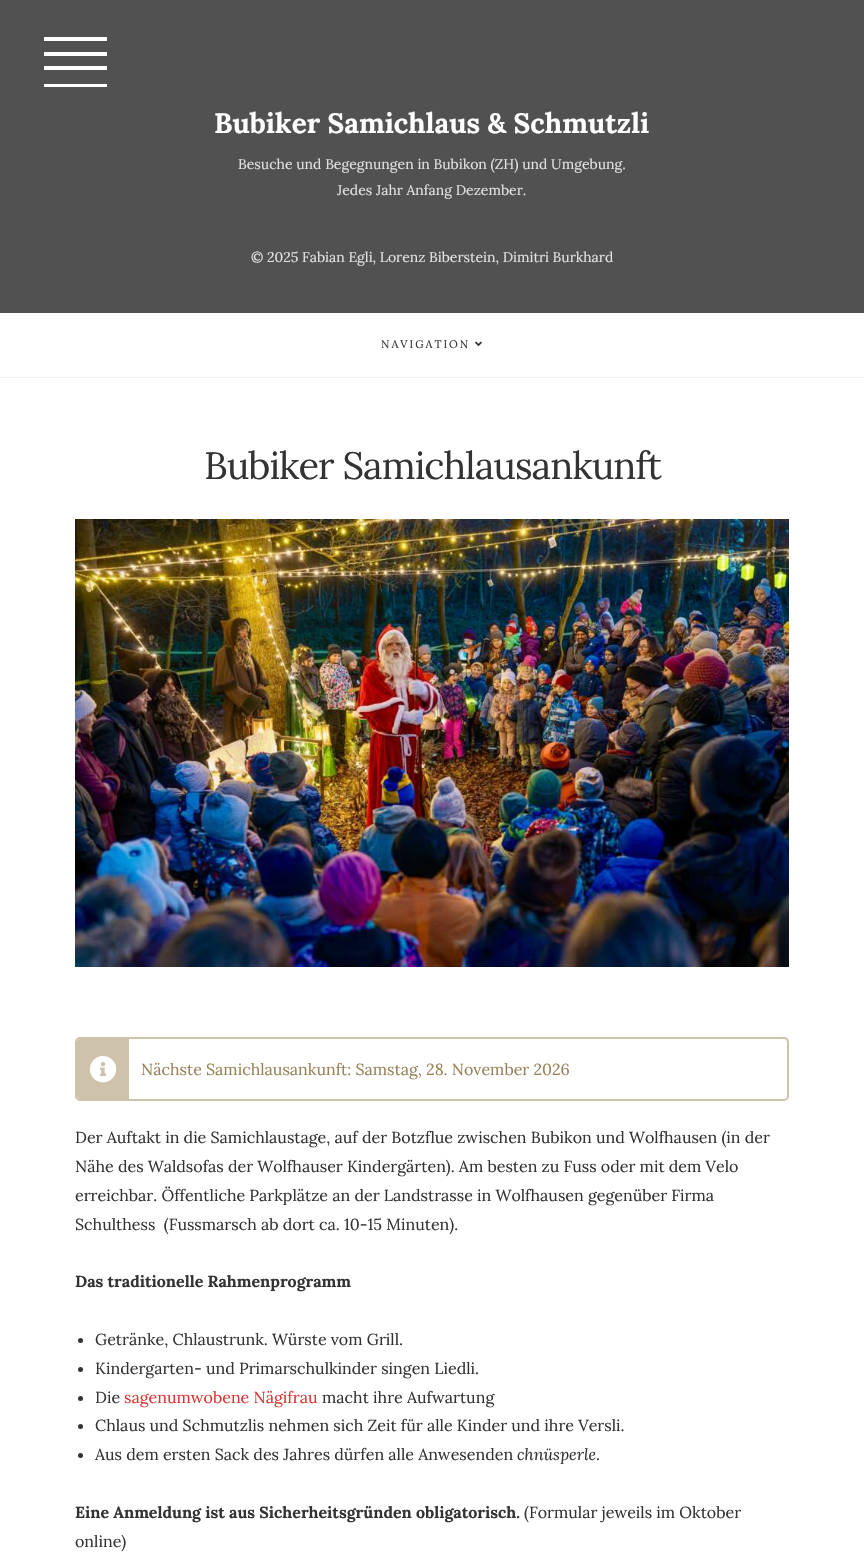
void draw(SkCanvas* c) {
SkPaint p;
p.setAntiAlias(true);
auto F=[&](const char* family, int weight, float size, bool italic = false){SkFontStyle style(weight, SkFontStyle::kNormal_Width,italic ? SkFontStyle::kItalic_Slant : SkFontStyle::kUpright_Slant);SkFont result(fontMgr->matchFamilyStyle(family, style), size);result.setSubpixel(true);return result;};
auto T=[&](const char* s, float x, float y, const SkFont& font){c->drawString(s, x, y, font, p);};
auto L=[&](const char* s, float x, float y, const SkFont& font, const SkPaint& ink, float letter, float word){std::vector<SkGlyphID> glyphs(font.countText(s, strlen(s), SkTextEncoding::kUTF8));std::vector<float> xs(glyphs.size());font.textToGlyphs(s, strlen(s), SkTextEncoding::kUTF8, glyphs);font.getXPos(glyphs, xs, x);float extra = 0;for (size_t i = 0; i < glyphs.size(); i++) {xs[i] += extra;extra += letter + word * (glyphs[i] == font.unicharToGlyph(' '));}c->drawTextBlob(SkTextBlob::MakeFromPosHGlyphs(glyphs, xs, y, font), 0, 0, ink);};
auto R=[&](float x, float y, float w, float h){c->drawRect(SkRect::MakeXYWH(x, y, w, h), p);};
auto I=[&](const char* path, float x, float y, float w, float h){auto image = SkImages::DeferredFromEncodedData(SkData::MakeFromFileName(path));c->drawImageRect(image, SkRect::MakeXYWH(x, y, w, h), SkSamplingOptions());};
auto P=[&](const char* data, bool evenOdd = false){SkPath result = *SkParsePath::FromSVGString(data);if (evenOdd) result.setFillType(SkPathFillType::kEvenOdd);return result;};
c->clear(0xffffffff);
p.setColor(0xff515151);
R(0,0,864,313);
p.setColor(0xffffffff);
R(44,52,63,4);
R(44,37,63,4);
R(44,66,63,4);
R(44,84,63,3);
auto f1 = F("Lora",700,28);
T("Bubiker Samichlaus & Schmutzli",214,133,f1);
auto f2 = F("Lora",400,14);
p.setColor(0xffe0e0e0);
T("Besuche und Begegnungen in Bubikon (ZH) und Umgebung.",238,169,f2);
T("Jedes Jahr Anfang Dezember.",337,195,f2);
T("© 2025 Fabian Egli, Lorenz Biberstein, Dimitri Burkhard",251,262,f2);
p.setColor(0xfff2f2f2);
R(0,377,864,1);
auto f3 = F("Lora",400,11);
p.setColor(0xff333333);
L("NAVIGATION",381,348,f3,p,2,0);
I("1.png",475,341,7,5);
auto f4 = F("Lora",400,38);
L("Bubiker Samichlausankunft",204,479,f4,p,-1,0);
I("2.png",75,519,714,448);
p.setStroke(true);
p.setStrokeWidth(2);
p.setColor(0xffcec2ab);
c->drawRoundRect(SkRect::MakeXYWH(76,1038,712,62),4,4,p);
p.setStroke(false);
c->drawPath(P("M80 1039h49v60h-49c-1.5 0-3-1.5-3-3v-54c0-1.5 1.5-3 3-3z"),p);
I("3.png",89,1056,28,27);
auto f5 = F("Lora",400,16);
p.setColor(0xff978258);
T("Nächste Samichlausankunft: Samstag, 28. November 2026",141,1075,f5);
p.setColor(0xff333333);
T("Der Auftakt in die Samichlaustage, auf der Botzflue zwischen Bubikon und Wolfhausen (in der",75,1143,f5);
T("Nähe des Waldsofas der Wolfhauser Kindergärten). Am besten zu Fuss oder mit dem Velo",75,1172,f5);
T("erreichbar. Öffentliche Parkplätze an der Landstrasse in Wolfhausen gegenüber Firma",75,1201,f5);
T("Schulthess  (Fussmarsch ab dort ca. 10-15 Minuten).",75,1230,f5);
auto f6 = F("Lora",700,16);
T("Das traditionelle Rahmenprogramm",75,1287,f6);
c->drawCircle(80.5,1340.5,2.5,p);
T("Getränke, Chlaustrunk. Würste vom Grill.",95,1345,f5);
c->drawCircle(80.5,1369.5,2.5,p);
T("Kindergarten- und Primarschulkinder singen Liedli.",95,1374,f5);
c->drawCircle(80.5,1398.5,2.5,p);
T("Die",95,1403,f5);
p.setColor(0xffdd3333);
T("sagenumwobene Nägifrau",124,1403,f5);
p.setColor(0xff333333);
T("macht ihre Aufwartung",322,1403,f5);
c->drawCircle(80.5,1426.5,2.5,p);
T("Chlaus und Schmutzlis nehmen sich Zeit für alle Kinder und ihre Versli.",95,1431,f5);
c->drawCircle(80.5,1455.5,2.5,p);
T("Aus dem ersten Sack des Jahres dürfen alle Anwesenden",95,1460,f5);
auto f7 = F("Lora",400,16,true);
T("chnüsperle",517,1460,f7);
T(".",596,1460,f5);
T("Eine Anmeldung ist aus Sicherheitsgründen obligatorisch.",75,1518,f6);
T("(Formular jeweils im Oktober",524,1518,f5);
T("online)",75,1547,f5);
}
